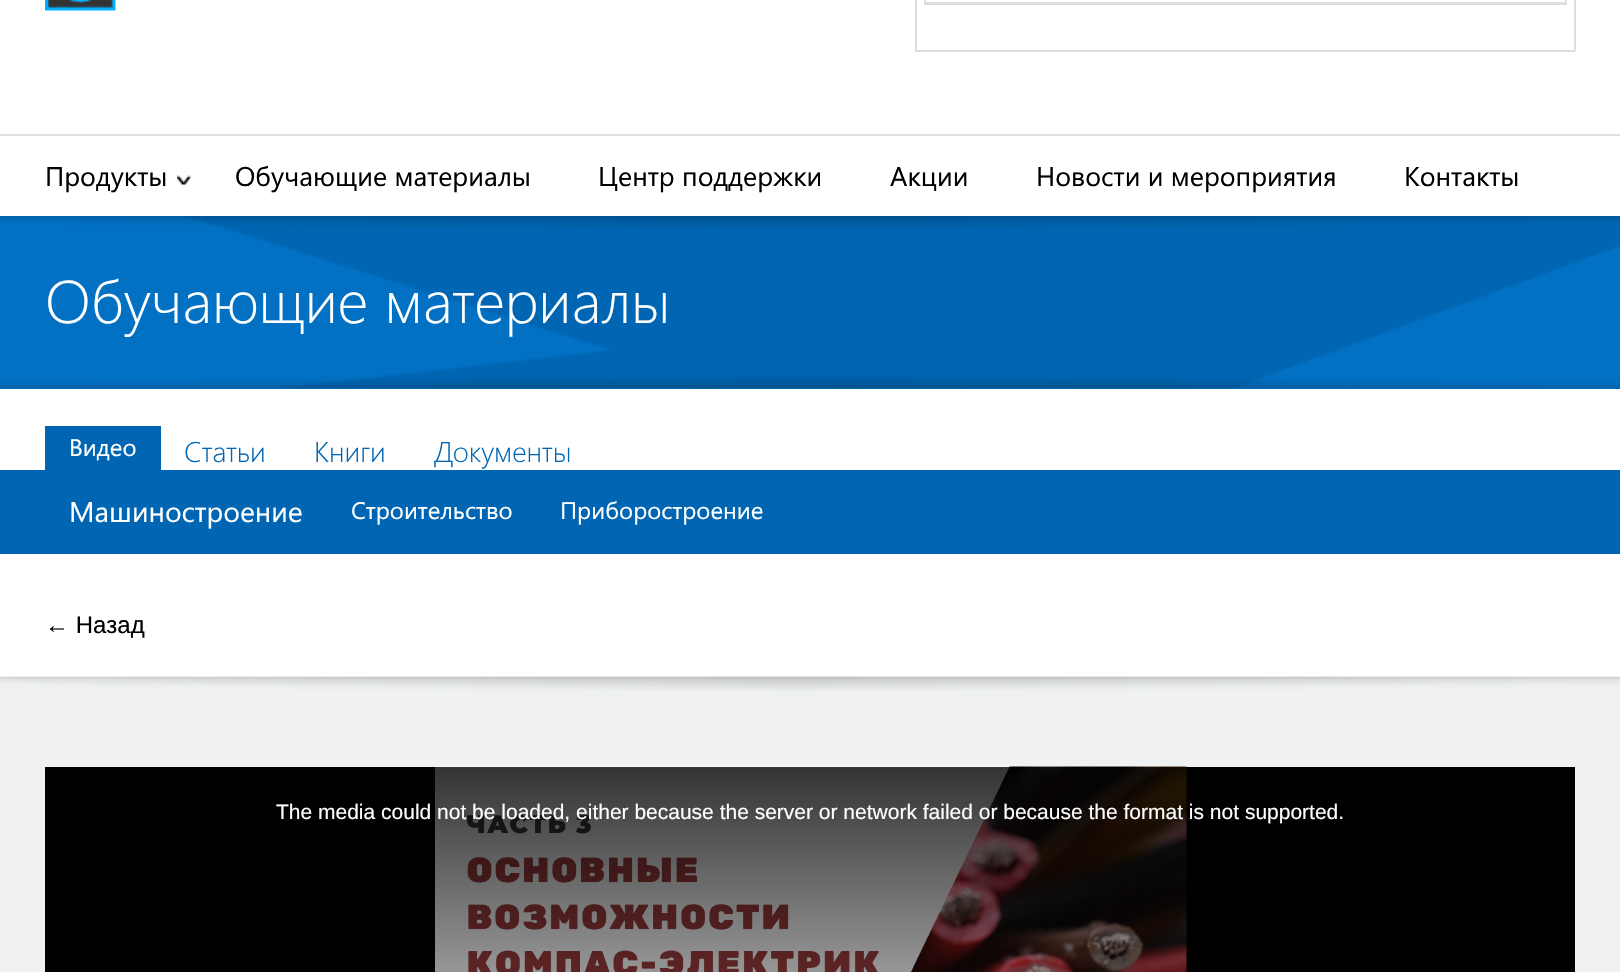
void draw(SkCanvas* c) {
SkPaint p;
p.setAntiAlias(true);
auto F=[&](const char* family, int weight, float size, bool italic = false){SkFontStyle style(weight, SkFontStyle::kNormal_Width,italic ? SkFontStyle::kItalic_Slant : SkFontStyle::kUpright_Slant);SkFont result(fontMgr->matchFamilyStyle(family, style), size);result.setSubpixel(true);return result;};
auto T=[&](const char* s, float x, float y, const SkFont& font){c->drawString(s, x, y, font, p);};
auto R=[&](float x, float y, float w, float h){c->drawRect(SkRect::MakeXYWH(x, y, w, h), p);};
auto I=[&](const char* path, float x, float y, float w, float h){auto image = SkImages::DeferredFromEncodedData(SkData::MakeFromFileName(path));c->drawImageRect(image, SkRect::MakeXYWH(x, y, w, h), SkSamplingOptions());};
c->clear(0xffffffff);
I("1.png",45,0,71,11);
p.setColor(0xffdddddd);
R(1574,0,2,51);
R(915,50,660,2);
R(915,0,2,51);
R(1565,0,2,5);
R(924,4,642,1);
R(924,0,2,5);
R(924,2,642,2);
p.setColor(0xffe0e0e0);
R(0,134,1620,2);
I("2.png",177,175,14,10);
auto f1 = F("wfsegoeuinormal",400,27);
p.setColor(0xff000000);
T("Продукты",45,186,f1);
T("Обучающие материалы",235,186,f1);
T("Центр поддержки",598,186,f1);
T("Акции",890,186,f1);
T("Новости и мероприятия",1036,186,f1);
T("Контакты",1404,186,f1);
p.setColor(0xff0271c4);
R(0,216,1620,173);
I("3.png",186,216,1434,173);
I("4.png",0,216,1620,15);
auto f2 = F("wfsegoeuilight",300,60);
p.setColor(0xffffffff);
T("Обучающие материалы",45,323,f2);
I("5.png",0,375,1620,14);
p.setColor(0xff0066b3);
R(45,426,116,44);
auto f3 = F("wfsegoeuinormal",400,24);
p.setColor(0xffffffff);
T("Видео",69,456,f3);
p.setColor(0xff0066b3);
R(0,470,1620,84);
auto f4 = F("wfsegoeuinormal",400,28.5);
p.setColor(0xffffffff);
T("Машиностроение",69,522,f4);
T("Строительство",351,519,f3);
T("Приборостроение",560,519,f3);
auto f5 = F("wfsegoeuilight",300,28.5);
p.setColor(0xff0066b3);
T("Статьи",184,462,f5);
T("Книги",314,462,f5);
T("Документы",434,462,f5);
auto f6 = F("Liberation Sans",400,24);
p.setColor(0xff000000);
T("← Назад",45,633,f6);
p.setColor(0xfff0f2f2);
R(0,677,1620,295);
I("6.png",0,676,1620,16);
p.setColor(0xff000000);
R(45,767,1530,205);
I("7.png",435,766,752,206);
{
const SkColor colors[] = {0xcc000000,0x00000000};
const float stops[] = {0,1};
const SkPoint ends[] = {{810,766}, {810,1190}};
p.setShader(SkGradientShader::MakeLinear(ends, colors, stops, 2, SkTileMode::kClamp));
p.setAlpha(255);
}
R(435,767,752,205);
auto f7 = F("Liberation Sans",400,21);
p.setShader(nullptr);
p.setColor(0xffffffff);
T("The media could not be loaded, either because the server or network failed or because the format is not supported.",276,819,f7);
}
